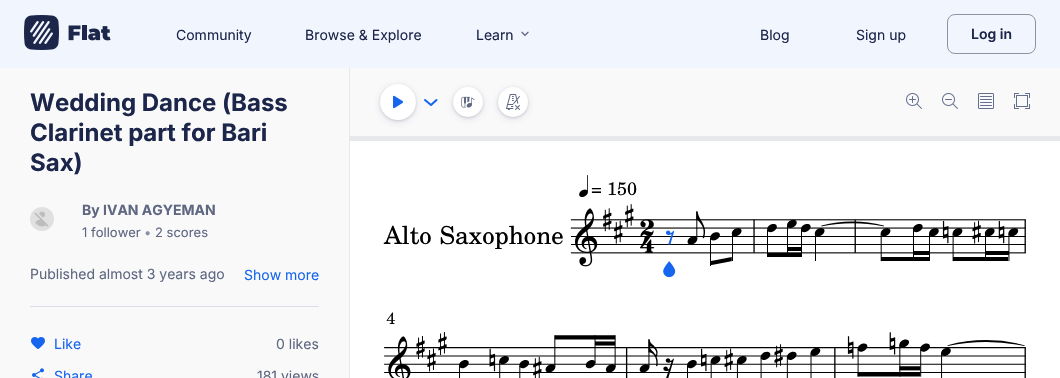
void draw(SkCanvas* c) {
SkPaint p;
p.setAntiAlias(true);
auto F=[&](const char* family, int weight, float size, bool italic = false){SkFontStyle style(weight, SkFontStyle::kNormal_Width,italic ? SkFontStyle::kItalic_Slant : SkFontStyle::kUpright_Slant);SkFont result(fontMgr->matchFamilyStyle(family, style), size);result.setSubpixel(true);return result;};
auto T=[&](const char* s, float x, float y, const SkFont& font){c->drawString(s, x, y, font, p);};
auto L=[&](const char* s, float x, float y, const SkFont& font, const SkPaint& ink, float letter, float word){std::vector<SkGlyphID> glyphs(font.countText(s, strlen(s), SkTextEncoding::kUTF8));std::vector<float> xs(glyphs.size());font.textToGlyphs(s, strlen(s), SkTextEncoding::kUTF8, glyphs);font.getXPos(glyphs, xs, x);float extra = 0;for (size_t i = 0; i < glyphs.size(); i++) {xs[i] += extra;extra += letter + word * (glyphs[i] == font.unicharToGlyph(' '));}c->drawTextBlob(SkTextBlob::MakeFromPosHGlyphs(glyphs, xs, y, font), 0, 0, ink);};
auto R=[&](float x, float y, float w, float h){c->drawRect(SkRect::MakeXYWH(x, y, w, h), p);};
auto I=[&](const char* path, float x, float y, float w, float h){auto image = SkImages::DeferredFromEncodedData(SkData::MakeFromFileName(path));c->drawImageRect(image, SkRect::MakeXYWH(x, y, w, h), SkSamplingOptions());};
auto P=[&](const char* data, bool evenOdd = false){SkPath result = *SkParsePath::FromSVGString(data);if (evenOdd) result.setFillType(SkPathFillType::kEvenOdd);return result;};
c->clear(0xffffffff);
p.setColor(0xfff1f6fe);
R(0,0,1060,68);
I("1.png",24,15,87,35);
auto f1 = F("Inter",400,14);
p.setColor(0xff1c264a);
T("Community",176,40,f1);
T("Browse & Explore",305,40,f1);
T("Learn",476,40,f1);
I("2.png",521,31,8,6);
T("Blog",760,40,f1);
T("Sign up",856,40,f1);
p.setStroke(true);
p.setStrokeWidth(1);
p.setColor(0xff8d93a5);
c->drawRoundRect(SkRect::MakeXYWH(947.5,14.5,88,39),7.5,7.5,p);
auto f2 = F("Inter",600,14);
p.setStroke(false);
p.setColor(0xff1c264a);
T("Log in",971,39,f2);
p.setColor(0xfff9f9fa);
R(0,68,349,310);
p.setColor(0xffe7e8ec);
R(349,68,1,310);
auto f3 = F("Inter",700,24);
p.setColor(0xff1c264a);
T("Wedding Dance (Bass",30,111,f3);
T("Clarinet part for Bari",30,141,f3);
T("Sax)",30,171,f3);
I("3.png",30,207,24,24);
auto f4 = F("Inter",700,14);
p.setColor(0xff5f6781);
T("By IVAN AGYEMAN",82,215,f4);
auto f5 = F("Inter",400,13);
T("1 follower",82,237,f5);
p.setColor(0xff8d93a5);
T("•",144,237,f5);
p.setColor(0xff5f6781);
T("2 scores",155,237,f5);
T("Published almost 3 years ago",30,279,f1);
p.setColor(0xff1565ef);
T("Show more",244,280,f1);
p.setColor(0xffdbdee6);
R(30,306,289,1);
I("4.png",31,337,14,12);
p.setColor(0xff1565ef);
T("Like",54,349,f1);
p.setColor(0xff5f6781);
T("0 likes",276,349,f1);
I("5.png",32,368,12,10);
p.setColor(0xff1565ef);
T("Share",54,381,f1);
p.setColor(0xff5f6781);
T("181 views",257,381,f1);
p.setColor(0xfff9f9fa);
R(350,68,710,68);
p.setColor(0x3328304f);
p.setMaskFilter(SkMaskFilter::MakeBlur(kNormal_SkBlurStyle, 1.5));
c->drawRoundRect(SkRect::MakeXYWH(380,85,36,36),18,18,p);
p.setMaskFilter(nullptr);
p.setColor(0x1a28304f);
p.setMaskFilter(SkMaskFilter::MakeBlur(kNormal_SkBlurStyle, 4));
c->drawRoundRect(SkRect::MakeXYWH(380,86,36,36),18,18,p);
p.setMaskFilter(nullptr);
p.setColor(0xffffffff);
c->drawCircle(398,102,18,p);
I("6.png",393,95,11,14);
p.setStroke(true);
p.setStrokeWidth(2);
p.setStrokeCap(SkPaint::kRound_Cap);
p.setStrokeJoin(SkPaint::kRound_Join);
p.setColor(0xff1565ef);
c->drawPath(P("M425 100l6 5l5.5-5"),p);
p.setStroke(false);
p.setColor(0x3328304f);
p.setMaskFilter(SkMaskFilter::MakeBlur(kNormal_SkBlurStyle, 1.5));
c->drawRoundRect(SkRect::MakeXYWH(453,88,30,30),15,15,p);
p.setMaskFilter(nullptr);
p.setColor(0x1a28304f);
p.setMaskFilter(SkMaskFilter::MakeBlur(kNormal_SkBlurStyle, 4));
c->drawRoundRect(SkRect::MakeXYWH(453,89,30,30),15,15,p);
p.setMaskFilter(nullptr);
p.setColor(0xffffffff);
c->drawCircle(468,102,15,p);
I("7.png",461,96,14,12);
p.setColor(0x3328304f);
p.setMaskFilter(SkMaskFilter::MakeBlur(kNormal_SkBlurStyle, 1.5));
c->drawRoundRect(SkRect::MakeXYWH(498,88,30,30),15,15,p);
p.setMaskFilter(nullptr);
p.setColor(0x1a28304f);
p.setMaskFilter(SkMaskFilter::MakeBlur(kNormal_SkBlurStyle, 4));
c->drawRoundRect(SkRect::MakeXYWH(498,89,30,30),15,15,p);
p.setMaskFilter(nullptr);
p.setColor(0xffffffff);
c->drawCircle(513,102,15,p);
I("8.png",506,94,14,16);
I("9.png",906,93,16,16);
I("10.png",942,93,16,16);
I("11.png",978,93,16,16);
I("12.png",1014,93,16,16);
p.setColor(0xffe7e8ec);
R(350,136,710,5);
I("13.png",570,175,456,103);
auto f6 = F("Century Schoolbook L",400,18);
p.setColor(0xff000000);
T("= 150",591,195,f6);
auto f7 = F("Century Schoolbook L",400,24.75);
L("Alto Saxophone",384,244,f7,p,0,1);
I("14.png",384,312,642,66);
}
